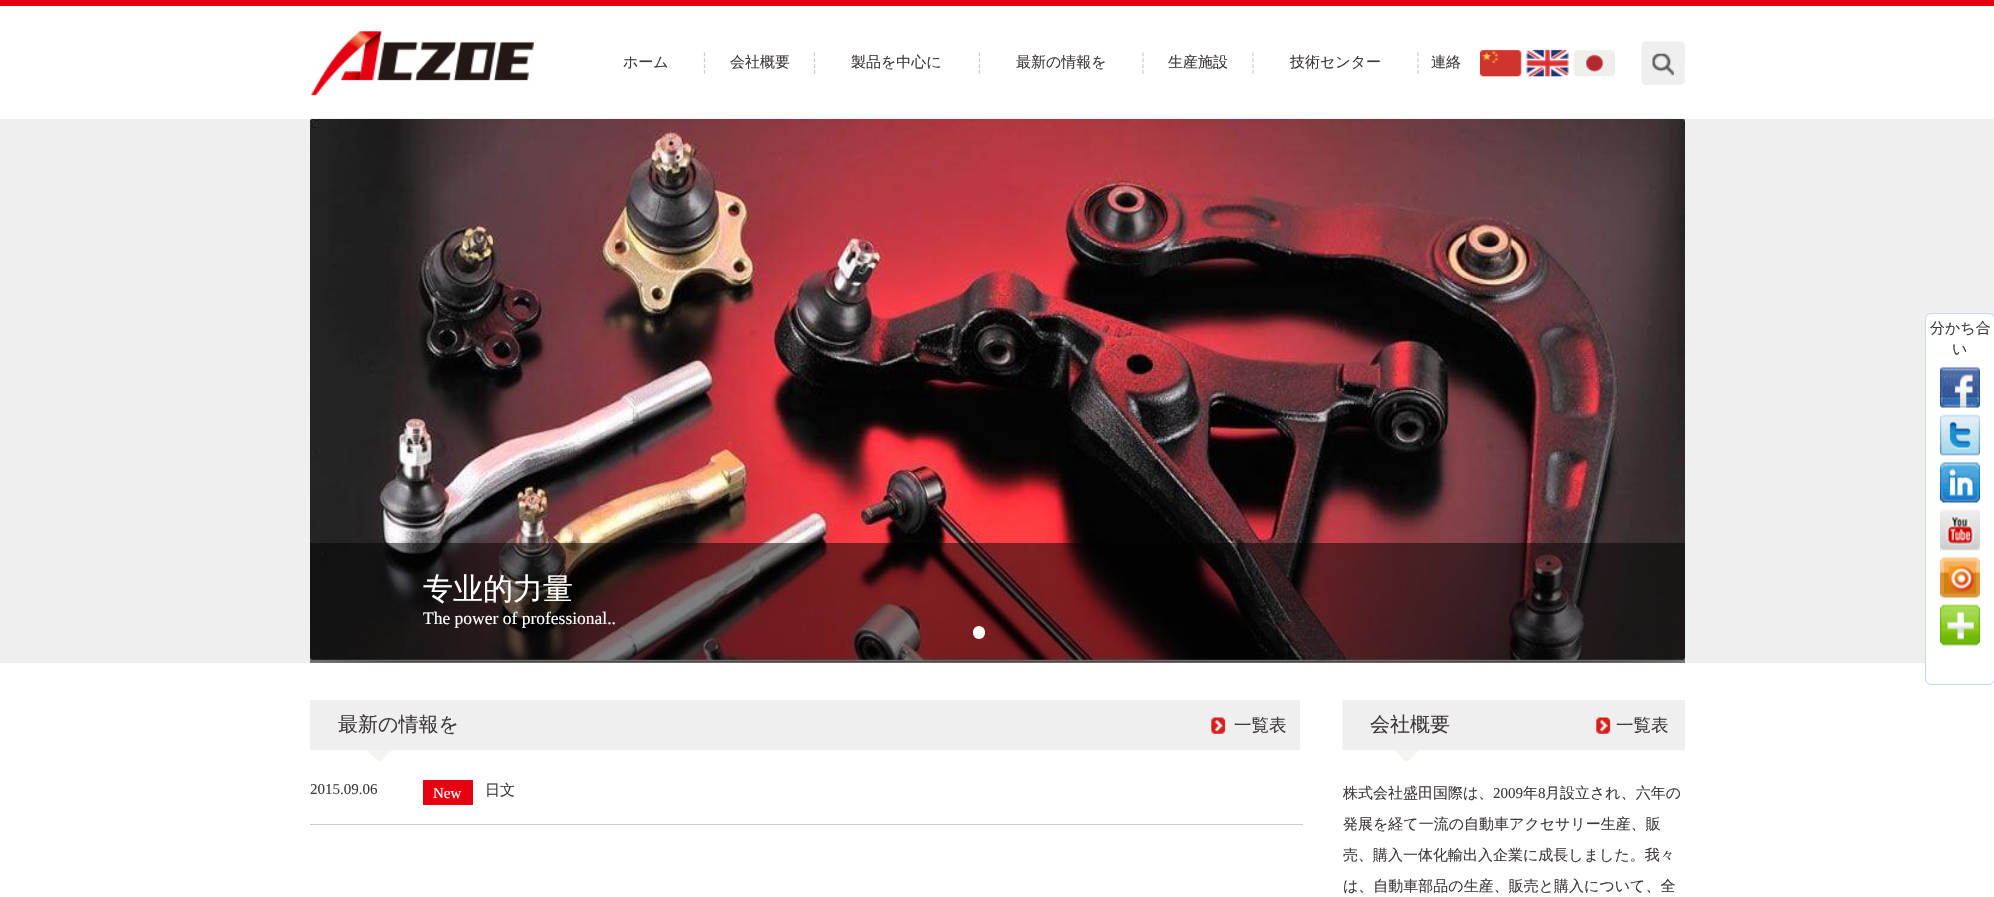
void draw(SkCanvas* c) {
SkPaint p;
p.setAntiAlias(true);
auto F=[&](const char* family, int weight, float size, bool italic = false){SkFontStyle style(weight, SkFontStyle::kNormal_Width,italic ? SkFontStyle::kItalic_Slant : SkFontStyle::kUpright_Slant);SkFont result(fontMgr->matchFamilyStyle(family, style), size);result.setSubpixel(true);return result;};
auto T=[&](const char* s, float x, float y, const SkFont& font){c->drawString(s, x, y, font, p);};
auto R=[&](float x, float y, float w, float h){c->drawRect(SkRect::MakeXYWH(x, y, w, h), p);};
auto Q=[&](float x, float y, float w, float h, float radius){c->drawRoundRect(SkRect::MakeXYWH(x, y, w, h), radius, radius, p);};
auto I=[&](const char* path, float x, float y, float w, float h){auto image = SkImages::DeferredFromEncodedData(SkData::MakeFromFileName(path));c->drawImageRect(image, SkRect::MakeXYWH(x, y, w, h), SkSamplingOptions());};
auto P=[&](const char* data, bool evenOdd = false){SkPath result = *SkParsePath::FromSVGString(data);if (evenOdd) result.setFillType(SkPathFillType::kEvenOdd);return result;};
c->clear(0xffffffff);
p.setColor(0xffe70012);
R(0,0,1994,6);
I("1.png",311,31,223,65);
auto f1 = F("WenQuanYi Zen Hei",500,15);
p.setColor(0xff3e3a39);
T("ホーム",623,67,f1);
p.setStroke(true);
p.setStrokeWidth(1.2);
p.setColor(0xffcccccc);
p.setPathEffect(SkDashPathEffect::Make({{3.75f,2.09f}}, 0));
c->drawPath(P("M704.5 52.5v21.5"),p);
p.setPathEffect(nullptr);
p.setStroke(false);
p.setColor(0xff3e3a39);
T("会社概要",730,67,f1);
p.setStroke(true);
p.setColor(0xffcccccc);
p.setPathEffect(SkDashPathEffect::Make({{3.75f,2.09f}}, 0));
c->drawPath(P("M814.5 52.5v21.5"),p);
p.setPathEffect(nullptr);
p.setStroke(false);
p.setColor(0xff3e3a39);
T("製品を中心に",851,67,f1);
p.setStroke(true);
p.setColor(0xffcccccc);
p.setPathEffect(SkDashPathEffect::Make({{3.75f,2.09f}}, 0));
c->drawPath(P("M979.5 52.5v21.5"),p);
p.setPathEffect(nullptr);
p.setStroke(false);
p.setColor(0xff3e3a39);
T("最新の情報を",1016,67,f1);
p.setStroke(true);
p.setColor(0xffcccccc);
p.setPathEffect(SkDashPathEffect::Make({{3.75f,2.09f}}, 0));
c->drawPath(P("M1143 52.5v21.5"),p);
p.setPathEffect(nullptr);
p.setStroke(false);
p.setColor(0xff3e3a39);
T("生産施設",1168,67,f1);
p.setStroke(true);
p.setColor(0xffcccccc);
p.setPathEffect(SkDashPathEffect::Make({{3.75f,2.09f}}, 0));
c->drawPath(P("M1253 52.5v21.5"),p);
p.setPathEffect(nullptr);
p.setStroke(false);
p.setColor(0xff3e3a39);
T("技術センター",1290,67,f1);
p.setStroke(true);
p.setColor(0xffcccccc);
p.setPathEffect(SkDashPathEffect::Make({{3.75f,2.09f}}, 0));
c->drawPath(P("M1418 52.5v21.5"),p);
p.setPathEffect(nullptr);
p.setStroke(false);
p.setColor(0xff3e3a39);
T("連絡",1431,67,f1);
I("2.png",1480,49,135,28);
I("3.png",1641,41,44,44);
p.setColor(0xffefefef);
R(0,119,1994,544);
p.setColor(0xffffffff);
c->drawRoundRect(SkRect::MakeXYWH(1925.5,313.5,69,371),5.5,5.5,p);
p.setStroke(true);
p.setStrokeWidth(1);
p.setColor(0xffcbd5ee);
c->drawRoundRect(SkRect::MakeXYWH(1925.5,313.5,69,371),5.5,5.5,p);
p.setStroke(false);
p.setColor(0xff3e3a39);
T("分かち合",1930,333,f1);
T("い",1952,354,f1);
I("4.png",1940,367,40,41);
I("5.png",1940,414,40,42);
I("6.png",1940,462,40,41);
I("7.png",1940,509,40,42);
I("8.png",1940,557,40,41);
I("9.png",1940,604,40,42);
I("10.png",310,118,1375,545);
p.setColor(0x80000000);
R(310,543,1375,120);
p.setColor(0xffffffff);
Q(973,626,12,13,6);
auto f2 = F("WenQuanYi Zen Hei",500,30);
T("专业的力量",423,599,f2);
auto f3 = F("Liberation Serif",400,17.5);
T("The power of professional..",423,624,f3);
I("11.png",310,700,990,62);
auto f4 = F("WenQuanYi Zen Hei",500,20);
p.setColor(0xff3e3a39);
T("最新の情報を",338,731,f4);
auto f5 = F("WenQuanYi Zen Hei",500,17.5);
T("一覧表",1234,731,f5);
I("12.png",1342,700,343,62);
T("会社概要",1370,731,f4);
T("一覧表",1616,731,f5);
p.setColor(0xffcccccc);
R(310,824,993,1);
auto f6 = F("Liberation Serif",400,15);
p.setColor(0xff3e3a39);
T("2015.09.06",310,794,f6);
p.setColor(0xffe70012);
R(423,780,50,25);
p.setColor(0xffffffff);
T("New",433,798,f6);
p.setColor(0xff3e3a39);
T("日文",485,795,f1);
T("株式会社盛田国際は、",1343,798,f1);
T("2009",1493,798,f6);
T("年",1523,798,f1);
T("8",1538,798,f6);
T("月設立され、六年の",1545,798,f1);
T("発展を経て一流の自動車アクセサリー生産、販",1343,829,f1);
T("売、購入一体化輸出入企業に成長しました。我々",1343,860,f1);
T("は、自動車部品の生産、販売と購入について、全",1343,891,f1);
}
